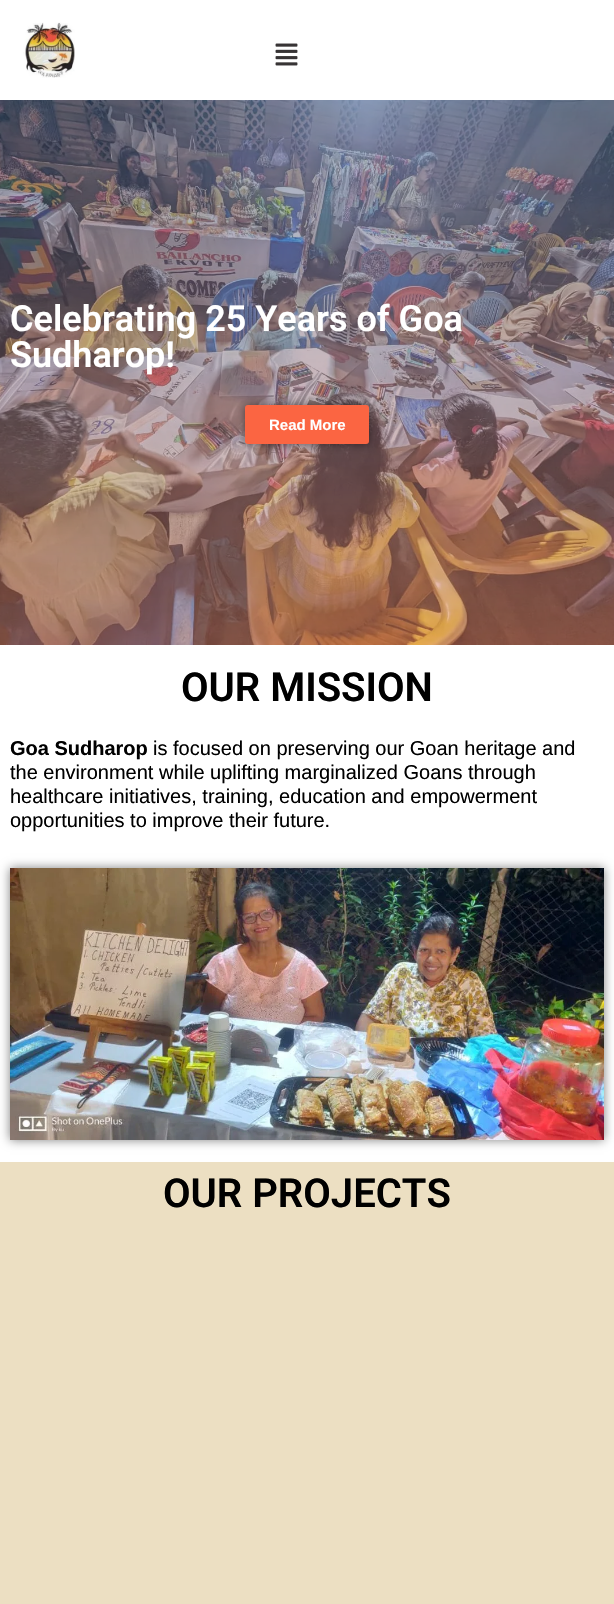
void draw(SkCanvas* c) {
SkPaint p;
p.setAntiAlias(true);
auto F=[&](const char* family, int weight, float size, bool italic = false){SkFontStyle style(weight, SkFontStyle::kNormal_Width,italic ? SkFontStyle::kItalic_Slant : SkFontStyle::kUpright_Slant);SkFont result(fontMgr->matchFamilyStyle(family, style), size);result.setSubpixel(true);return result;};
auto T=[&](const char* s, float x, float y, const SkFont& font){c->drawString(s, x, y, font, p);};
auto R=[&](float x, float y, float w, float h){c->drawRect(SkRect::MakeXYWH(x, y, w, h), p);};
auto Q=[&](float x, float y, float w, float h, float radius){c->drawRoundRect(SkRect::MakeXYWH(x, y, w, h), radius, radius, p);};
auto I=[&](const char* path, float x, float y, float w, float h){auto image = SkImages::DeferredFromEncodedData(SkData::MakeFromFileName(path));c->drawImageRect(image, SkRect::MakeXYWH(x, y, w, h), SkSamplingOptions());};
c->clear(0xffffffff);
I("1.png",23,22,52,56);
I("2.png",275,43,23,23);
I("3.png",0,100,614,545);
auto f1 = F("Roboto",600,36);
p.setColor(0xffffffff);
T("Celebrating 25 Years of Goa",10,331,f1);
T("Sudharop!",10,367,f1);
p.setColor(0x80000000);
p.setMaskFilter(SkMaskFilter::MakeBlur(kNormal_SkBlurStyle, 5));
c->drawRoundRect(SkRect::MakeXYWH(245,405,124,39),3,3,p);
p.setMaskFilter(nullptr);
p.setColor(0xfffb6542);
Q(245,405,124,39,3);
auto f2 = F("Liberation Sans",700,15);
p.setColor(0xffffffff);
T("Read More",269,430,f2);
auto f3 = F("Roboto",600,40);
p.setColor(0xff000000);
T("OUR MISSION",181,701,f3);
auto f4 = F("Liberation Sans",700,20);
T("Goa Sudharop",10,755,f4);
auto f5 = F("Liberation Sans",400,20);
T("is focused on preserving our Goan heritage and",153,755,f5);
T("the environment while uplifting marginalized Goans through",10,779,f5);
T("healthcare initiatives, training, education and empowerment",10,803,f5);
T("opportunities to improve their future.",10,827,f5);
p.setColor(0x80000000);
p.setMaskFilter(SkMaskFilter::MakeBlur(kNormal_SkBlurStyle, 5));
c->drawRect(SkRect::MakeXYWH(10,868,594,272),p);
p.setMaskFilter(nullptr);
I("4.png",10,868,594,272);
p.setColor(0xffecdfc2);
R(0,1162,614,442);
p.setColor(0xff000000);
T("OUR PROJECTS",163,1207,f3);
}
